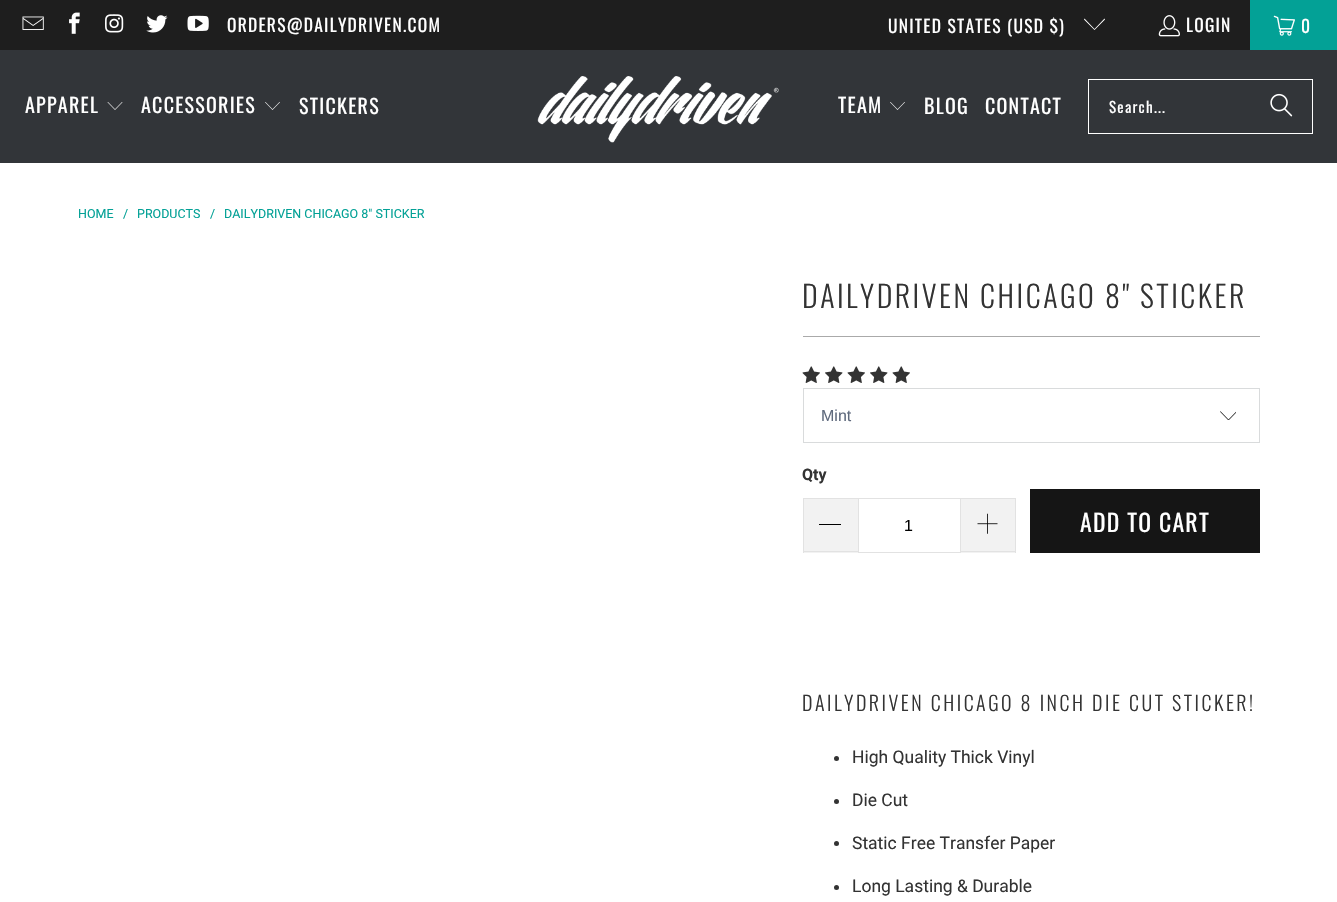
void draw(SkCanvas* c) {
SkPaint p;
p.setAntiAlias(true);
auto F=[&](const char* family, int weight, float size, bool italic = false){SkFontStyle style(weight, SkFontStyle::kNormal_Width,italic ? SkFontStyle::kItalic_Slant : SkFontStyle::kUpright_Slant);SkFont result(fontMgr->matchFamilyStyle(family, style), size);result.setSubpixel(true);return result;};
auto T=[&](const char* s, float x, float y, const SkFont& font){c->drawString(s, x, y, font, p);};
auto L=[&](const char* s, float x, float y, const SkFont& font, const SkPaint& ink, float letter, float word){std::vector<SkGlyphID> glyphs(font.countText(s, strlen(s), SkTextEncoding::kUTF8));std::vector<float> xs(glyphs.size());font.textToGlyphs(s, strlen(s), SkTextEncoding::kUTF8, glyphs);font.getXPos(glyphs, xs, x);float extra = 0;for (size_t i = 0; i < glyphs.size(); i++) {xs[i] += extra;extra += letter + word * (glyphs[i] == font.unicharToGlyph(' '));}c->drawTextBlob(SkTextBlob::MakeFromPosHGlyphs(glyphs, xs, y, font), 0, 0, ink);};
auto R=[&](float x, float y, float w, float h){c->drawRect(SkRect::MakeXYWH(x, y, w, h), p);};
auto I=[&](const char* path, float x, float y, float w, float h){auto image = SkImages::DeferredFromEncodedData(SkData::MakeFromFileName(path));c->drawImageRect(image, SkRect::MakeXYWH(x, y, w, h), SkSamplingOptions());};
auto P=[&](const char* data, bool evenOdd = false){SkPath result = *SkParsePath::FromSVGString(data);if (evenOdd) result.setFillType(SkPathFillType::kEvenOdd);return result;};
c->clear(0xffffffff);
p.setColor(0xff1e1e1e);
R(0,0,1250,50);
I("1.png",22,16,22,14);
I("2.png",69,12,11,22);
I("3.png",105,14,19,19);
I("4.png",146,15,22,18);
I("5.png",187,15,22,16);
auto f1 = F("Oswald",400,17.5);
p.setColor(0xffffffff);
L("ORDERS@DAILYDRIVEN.COM",227,32,f1,p,1.25,0);
L("UNITED STATES (USD $)",888,33,f1,p,1.25,0);
c->drawPath(P("M1094.5 30l-10.5-10.5l.5-1l10 10.5l10-10.5l.5 1z"),p);
I("6.png",1158,15,22,22);
L("LOGIN",1186,32,f1,p,1.25,0);
p.setColor(0xff03a196);
R(1250,0,87,50);
I("7.png",1273,15,22,21);
p.setColor(0xffffffff);
L("0",1301,33,f1,p,1.25,0);
p.setColor(0xff323539);
R(0,50,1337,113);
auto f2 = F("Oswald",400,20);
p.setColor(0xffffffff);
L("APPAREL",25,113,f2,p,1.25,0);
I("8.png",107,102,16,8);
L("ACCESSORIES",141,113,f2,p,1.25,0);
I("9.png",265,102,15,8);
L("STICKERS",299,114,f2,p,1.25,0);
I("10.png",537,76,242,67);
L("TEAM",838,113,f2,p,1.25,0);
I("9.png",890,102,15,8);
L("BLOG",924,114,f2,p,1.25,0);
L("CONTACT",985,114,f2,p,1.25,0);
p.setStroke(true);
p.setStrokeWidth(1);
c->drawRect(SkRect::MakeXYWH(1088.5,79.5,224,54),p);
auto f3 = F("Oswald",400,15);
p.setStroke(false);
L("Search...",1109,113,f3,p,1.25,0);
I("11.png",1270,93,23,24);
auto f4 = F("Roboto",400,12.5);
p.setColor(0xff03a196);
T("HOME",78,218,f4);
T("/",123,218,f4);
T("PRODUCTS",137,218,f4);
T("/",210,218,f4);
T("DAILYDRIVEN CHICAGO 8\" STICKER",224,218,f4);
auto f5 = F("Oswald",300,30);
p.setColor(0xff333333);
L("DAILYDRIVEN CHICAGO 8\" STICKER",802,308,f5,p,2.5,0);
p.setColor(0xffaaaaaa);
R(803,336,457,1);
I("12.png",802,366,18,17);
I("13.png",825,366,18,17);
I("12.png",847,366,18,17);
I("13.png",870,366,18,17);
I("12.png",892,366,18,17);
I("14.png",1220,411,16,9);
p.setStroke(true);
p.setColor(0xffd9dbdc);
c->drawRect(SkRect::MakeXYWH(803.5,388.5,456,54),p);
auto f6 = F("Liberation Sans",400,16);
p.setStroke(false);
p.setColor(0xff5f6a7d);
T("Mint",821,421,f6);
auto f7 = F("Roboto",700,16);
p.setColor(0xff333333);
T("Qty",802,480,f7);
p.setColor(0xfff2f2f2);
R(804,499,54,54);
p.setColor(0xffe2e2e2);
R(803,498,55,1);
R(803,551,55,1);
R(803,498,1,55);
p.setColor(0xff000000);
R(819,524,22,1);
p.setStroke(true);
p.setColor(0xffe2e2e2);
c->drawRect(SkRect::MakeXYWH(858.5,498.5,102,54),p);
p.setStroke(false);
p.setColor(0xff000000);
T("1",904,531,f6);
p.setColor(0xfff2f2f2);
R(961,499,54,54);
p.setColor(0xffe2e2e2);
R(961,498,55,1);
R(1015,498,1,55);
R(961,551,55,1);
I("15.png",977,513,21,21);
p.setColor(0xff151515);
R(1030,489,230,64);
auto f8 = F("Oswald",400,23.75);
p.setColor(0xffffffff);
L("ADD TO CART",1080,532,f8,p,1.25,0);
auto f9 = F("Oswald",300,20);
p.setColor(0xff333333);
L("DAILYDRIVEN CHICAGO 8 INCH DIE CUT STICKER!",802,711,f9,p,2.5,0);
c->drawCircle(836.5,758.5,2.5,p);
auto f10 = F("Roboto",400,17.5);
T("High Quality Thick Vinyl",852,763,f10);
c->drawCircle(836.5,801.5,2.5,p);
T("Die Cut",852,806,f10);
c->drawCircle(836.5,843.5,2.5,p);
T("Static Free Transfer Paper",852,849,f10);
c->drawCircle(836.5,887.5,2.5,p);
T("Long Lasting & Durable",852,892,f10);
}
